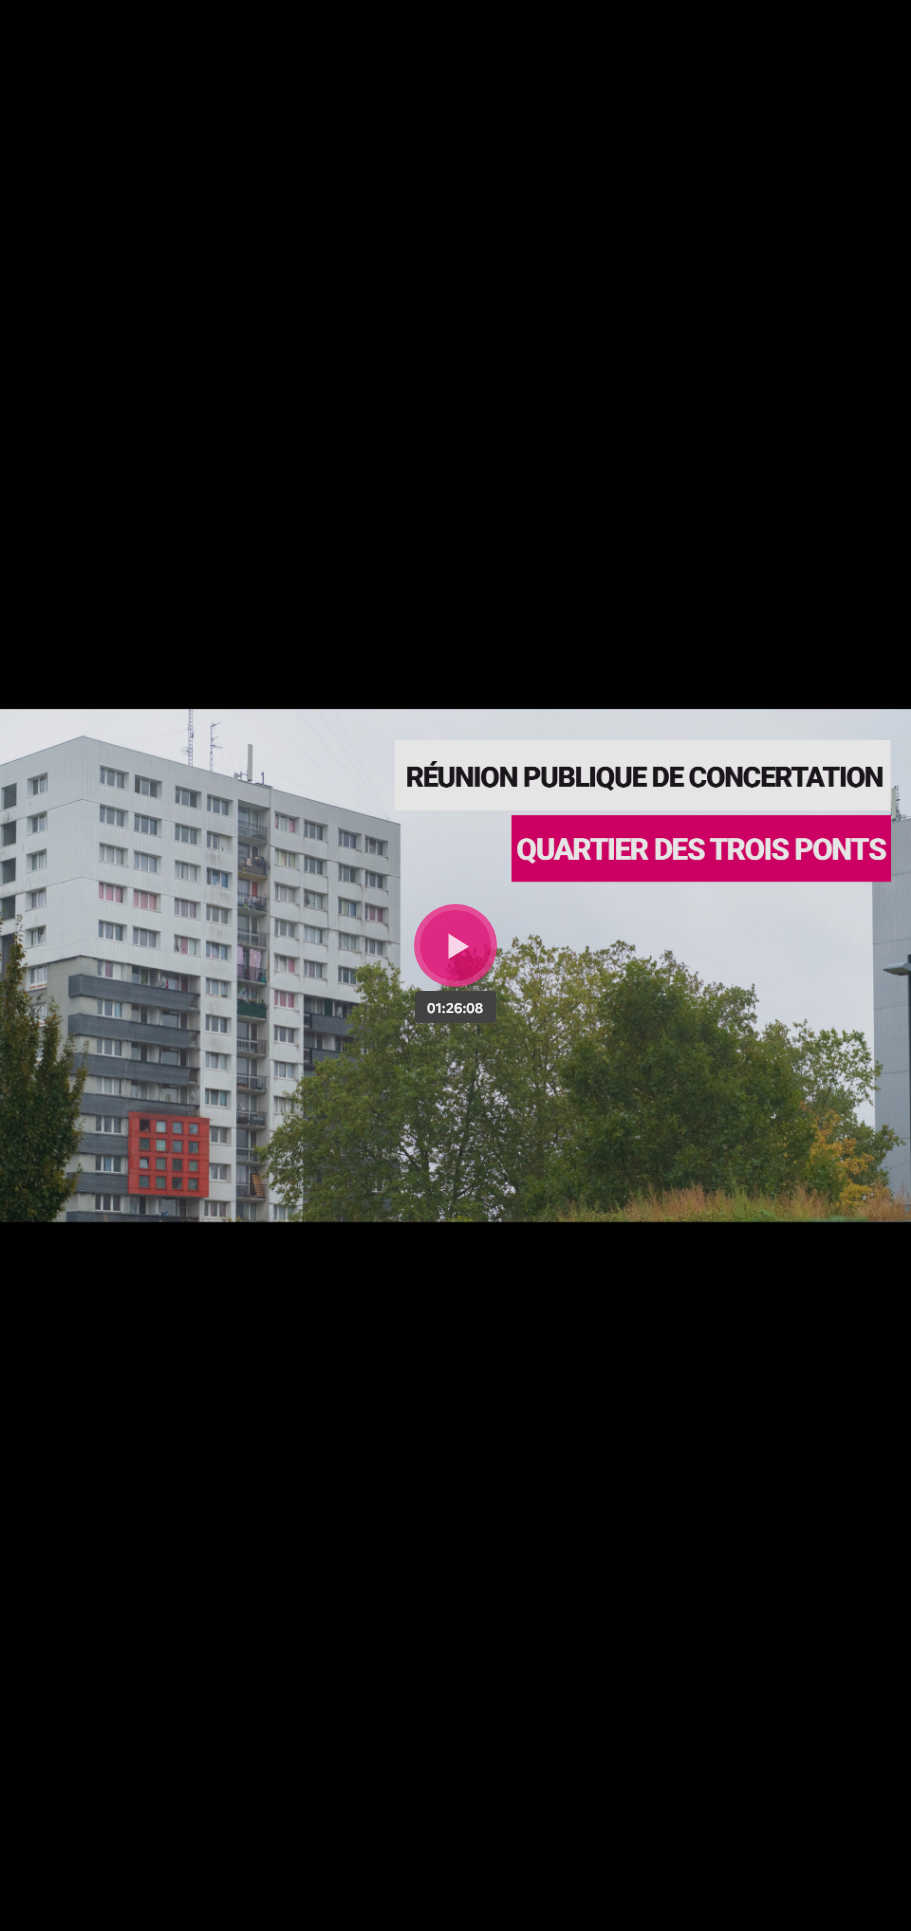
void draw(SkCanvas* c) {
SkPaint p;
p.setAntiAlias(true);
auto F=[&](const char* family, int weight, float size, bool italic = false){SkFontStyle style(weight, SkFontStyle::kNormal_Width,italic ? SkFontStyle::kItalic_Slant : SkFontStyle::kUpright_Slant);SkFont result(fontMgr->matchFamilyStyle(family, style), size);result.setSubpixel(true);return result;};
auto T=[&](const char* s, float x, float y, const SkFont& font){c->drawString(s, x, y, font, p);};
auto Q=[&](float x, float y, float w, float h, float radius){c->drawRoundRect(SkRect::MakeXYWH(x, y, w, h), radius, radius, p);};
auto I=[&](const char* path, float x, float y, float w, float h){auto image = SkImages::DeferredFromEncodedData(SkData::MakeFromFileName(path));c->drawImageRect(image, SkRect::MakeXYWH(x, y, w, h), SkSamplingOptions());};
auto P=[&](const char* data, bool evenOdd = false){SkPath result = *SkParsePath::FromSVGString(data);if (evenOdd) result.setFillType(SkPathFillType::kEvenOdd);return result;};
c->clear(0xff000000);
I("1.png",0,708,911,515);
p.setColor(0xcce3006d);
c->drawCircle(455.5,945.5,41.5,p);
p.setStroke(true);
p.setStrokeWidth(6);
p.setColor(0x29ffffff);
c->drawCircle(455.5,945.5,38.5,p);
p.setStroke(false);
p.setColor(0xccffffff);
c->drawPath(P("M448.5 933.5v25.5l20.5-12.5z"),p);
p.setColor(0xff424242);
Q(415,991,81,32,4);
auto f1 = F("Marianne",700,14);
p.setColor(0xffeeeeee);
T("01:26:08",427,1013,f1);
}
